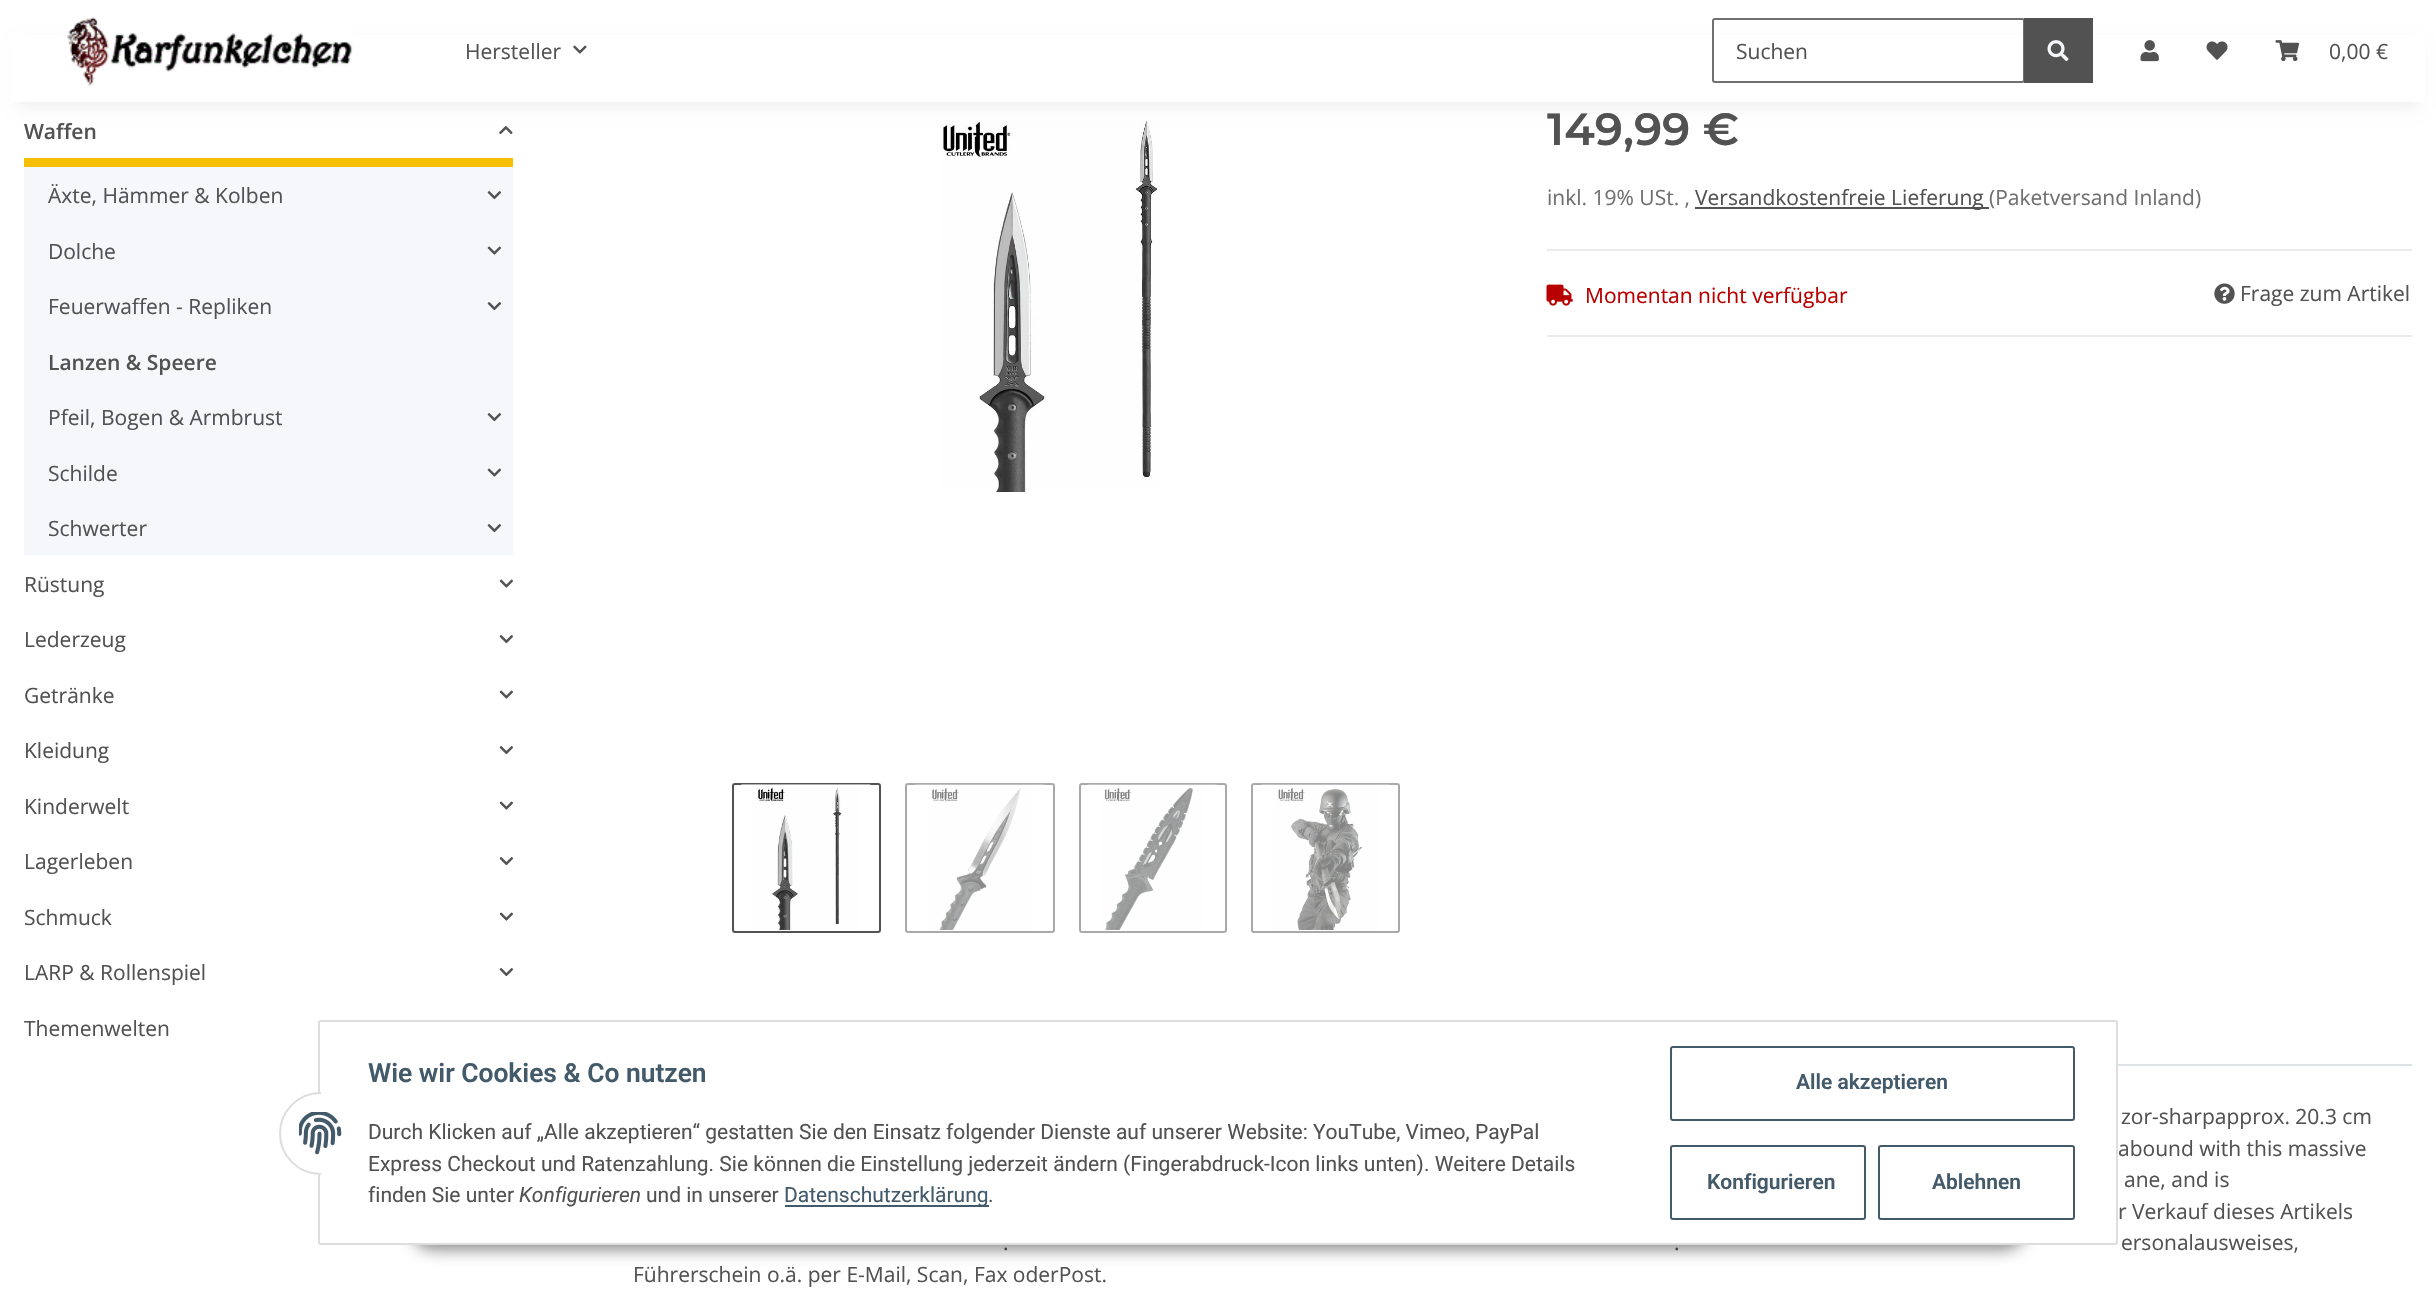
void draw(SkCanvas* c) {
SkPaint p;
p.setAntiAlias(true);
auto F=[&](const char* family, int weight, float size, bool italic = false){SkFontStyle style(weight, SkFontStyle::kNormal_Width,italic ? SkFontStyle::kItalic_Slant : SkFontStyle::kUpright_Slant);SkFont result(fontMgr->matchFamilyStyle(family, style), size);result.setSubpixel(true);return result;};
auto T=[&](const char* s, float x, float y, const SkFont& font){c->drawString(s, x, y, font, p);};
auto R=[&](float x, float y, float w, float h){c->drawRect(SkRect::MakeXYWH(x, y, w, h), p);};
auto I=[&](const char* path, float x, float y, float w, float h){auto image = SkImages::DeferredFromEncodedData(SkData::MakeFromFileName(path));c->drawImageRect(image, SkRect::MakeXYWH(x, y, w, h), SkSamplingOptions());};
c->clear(0xffffffff);
I("7.png",499,126,14,9);
I("12.png",942,120,218,372);
p.setColor(0x0f000000);
p.setMaskFilter(SkMaskFilter::MakeBlur(kNormal_SkBlurStyle, 7));
c->drawRect(SkRect::MakeXYWH(18,42,2400,66),p);
p.setMaskFilter(nullptr);
p.setColor(0xffffffff);
R(11,35,2414,67);
I("1.png",67,17,286,69);
auto f1 = F("Open Sans",400,21);
p.setColor(0xff525252);
T("Hersteller",465,59,f1);
I("2.png",573,45,14,9);
p.setStroke(true);
p.setStrokeWidth(2);
p.setColor(0xff707070);
c->drawRoundRect(SkRect::MakeXYWH(1713,19,311,63),2,2,p);
p.setStroke(false);
p.setColor(0xff525252);
T("Suchen",1736,59,f1);
R(2024,18,69,65);
I("3.png",2047,40,22,22);
I("4.png",2140,40,19,22);
I("5.png",2206,41,22,19);
I("6.png",2275,40,25,22);
T("0,00 €",2329,59,f1);
p.setColor(0xfff8bf00);
R(24,158,489,9);
auto f2 = F("Open Sans",600,21);
p.setColor(0xff525252);
T("Waffen",24,139,f2);
p.setColor(0xfff5f7fa);
R(24,167,489,388);
p.setColor(0xff525252);
T("Äxte, Hämmer & Kolben",48,203,f1);
I("8.png",487,191,14,9);
T("Dolche",48,259,f1);
I("9.png",487,246,14,9);
T("Feuerwaffen - Repliken",48,314,f1);
I("8.png",487,302,14,9);
T("Lanzen & Speere",48,370,f2);
T("Pfeil, Bogen & Armbrust",48,425,f1);
I("8.png",487,413,14,9);
T("Schilde",48,481,f1);
I("9.png",487,468,14,9);
T("Schwerter",48,536,f1);
I("8.png",487,524,14,9);
T("Rüstung",24,592,f1);
I("10.png",499,579,14,9);
T("Lederzeug",24,647,f1);
I("11.png",499,635,15,9);
T("Getränke",24,703,f1);
I("10.png",499,690,14,9);
T("Kleidung",24,758,f1);
I("11.png",499,746,15,9);
T("Kinderwelt",24,814,f1);
I("10.png",499,801,14,9);
T("Lagerleben",24,869,f1);
I("11.png",499,857,15,9);
T("Schmuck",24,925,f1);
I("10.png",499,912,14,9);
T("LARP & Rollenspiel",24,980,f1);
I("11.png",499,968,15,9);
T("Themenwelten",24,1036,f1);
p.setStroke(true);
c->drawRoundRect(SkRect::MakeXYWH(733,784,147,148),2,2,p);
I("13.png",741,784,130,146);
p.setColor(0xffa9a9a9);
c->drawRoundRect(SkRect::MakeXYWH(906,784,148,148),2,2,p);
I("14.png",915,784,130,146);
c->drawRoundRect(SkRect::MakeXYWH(1080,784,146,148),2,2,p);
I("15.png",1087,784,130,146);
c->drawRoundRect(SkRect::MakeXYWH(1252,784,147,148),2,2,p);
I("16.png",1261,784,129,146);
auto f3 = F("Montserrat",600,45);
p.setStroke(false);
p.setColor(0xff525252);
T("149,99 €",1547,145,f3);
p.setColor(0xff707070);
T("inkl. 19% USt. ,",1547,205,f1);
p.setColor(0xff525252);
R(1695,207,294,2);
T("Versandkostenfreie Lieferung",1695,205,f1);
p.setColor(0xff707070);
T("(Paketversand Inland)",1989,205,f1);
p.setColor(0xffebebeb);
R(1547,249,865,2);
R(1547,335,865,2);
I("17.png",1546,284,27,22);
p.setColor(0xffb90000);
T("Momentan nicht verfügbar",1585,303,f1);
I("18.png",2214,283,21,21);
p.setColor(0xff525252);
T("Frage zum Artikel",2240,301,f1);
p.setColor(0xffdee2e6);
R(2118,1064,294,2);
p.setColor(0xff525252);
T("zor-sharpapprox. 20.3 cm",2121,1124,f1);
T("abound with this massive",2118,1156,f1);
T("ane, and is",2124,1187,f1);
T("r Verkauf dieses Artikels",2118,1219,f1);
T(".",1003,1250,f1);
T(".",1674,1250,f1);
T("ersonalausweises,",2121,1250,f1);
T("Führerschein o.ä. per E-Mail, Scan, Fax oderPost.",633,1282,f1);
p.setColor(0x73000000);
p.setMaskFilter(SkMaskFilter::MakeBlur(kNormal_SkBlurStyle, 7.5));
c->drawRoundRect(SkRect::MakeXYWH(410,1202,1617,48),24,24,p);
p.setMaskFilter(nullptr);
p.setColor(0xffffffff);
c->drawRoundRect(SkRect::MakeXYWH(319,1021,1798,223),2,2,p);
p.setStroke(true);
p.setColor(0xffdddddd);
c->drawRoundRect(SkRect::MakeXYWH(319,1021,1798,223),2,2,p);
p.setStroke(false);
p.setColor(0xffffffff);
c->drawCircle(320.5,1133.5,40.5,p);
p.setStroke(true);
p.setColor(0xffdddddd);
c->drawCircle(320.5,1133.5,40.5,p);
p.setStroke(false);
p.setColor(0xffffffff);
R(321,1092,41,83);
I("19.png",299,1112,43,43);
auto f4 = F("Roboto",600,26.4);
p.setColor(0xff435a6b);
T("Wie wir Cookies & Co nutzen",368,1082,f4);
auto f5 = F("Roboto",400,21);
p.setColor(0xff525252);
T("Durch Klicken auf „Alle akzeptieren“ gestatten Sie den Einsatz folgender Dienste auf unserer Website: YouTube, Vimeo, PayPal",368,1139,f5);
T("Express Checkout und Ratenzahlung. Sie können die Einstellung jederzeit ändern (Fingerabdruck-Icon links unten). Weitere Details",368,1171,f5);
T("finden Sie unter",368,1202,f5);
auto f6 = F("Roboto",400,21,true);
T("Konfigurieren",519,1202,f6);
T("und in unserer",646,1202,f5);
p.setColor(0xff435a6b);
R(785,1205,204,2);
T("Datenschutzerklärung",784,1202,f5);
p.setColor(0xff525252);
T(".",988,1202,f5);
p.setStroke(true);
p.setColor(0xff435a6b);
c->drawRoundRect(SkRect::MakeXYWH(1671,1047,403,73),2,2,p);
auto f7 = F("Roboto",600,21);
p.setStroke(false);
T("Alle akzeptieren",1796,1089,f7);
p.setStroke(true);
c->drawRoundRect(SkRect::MakeXYWH(1671,1146,194,73),2,2,p);
p.setStroke(false);
T("Konfigurieren",1707,1189,f7);
p.setStroke(true);
c->drawRoundRect(SkRect::MakeXYWH(1879,1146,195,73),2,2,p);
p.setStroke(false);
T("Ablehnen",1932,1189,f7);
}
